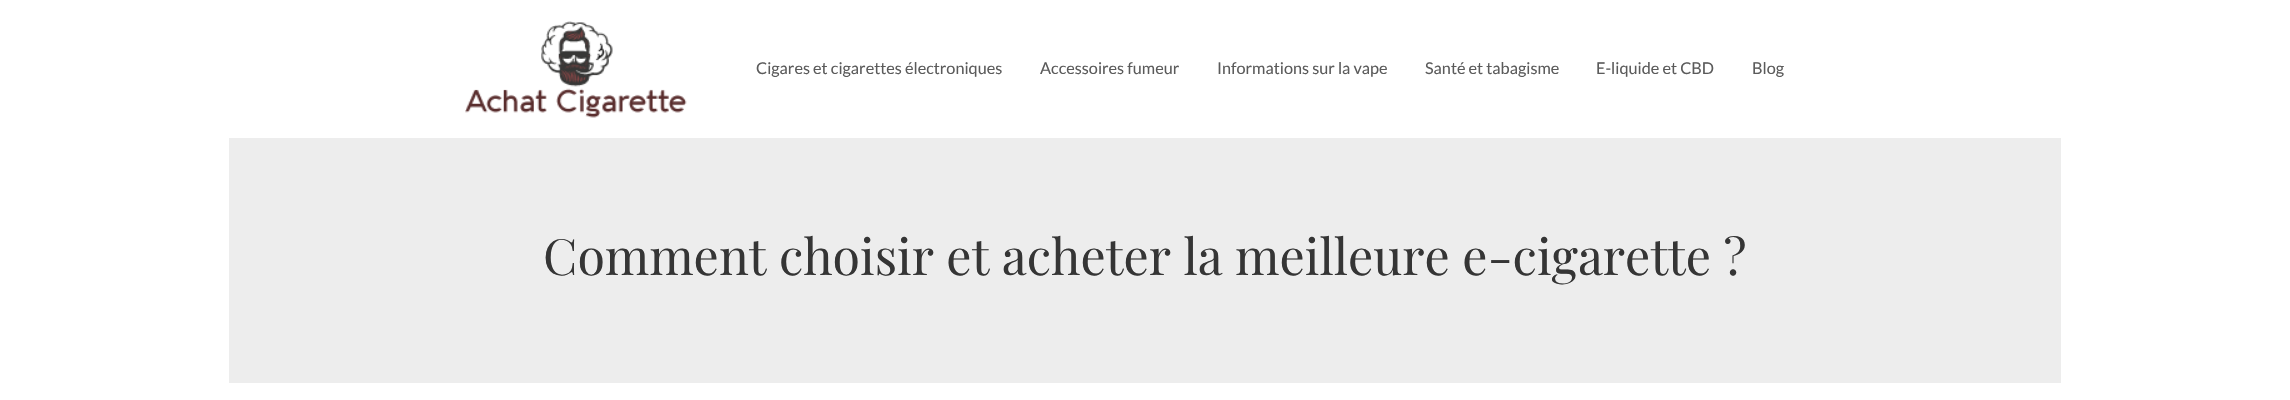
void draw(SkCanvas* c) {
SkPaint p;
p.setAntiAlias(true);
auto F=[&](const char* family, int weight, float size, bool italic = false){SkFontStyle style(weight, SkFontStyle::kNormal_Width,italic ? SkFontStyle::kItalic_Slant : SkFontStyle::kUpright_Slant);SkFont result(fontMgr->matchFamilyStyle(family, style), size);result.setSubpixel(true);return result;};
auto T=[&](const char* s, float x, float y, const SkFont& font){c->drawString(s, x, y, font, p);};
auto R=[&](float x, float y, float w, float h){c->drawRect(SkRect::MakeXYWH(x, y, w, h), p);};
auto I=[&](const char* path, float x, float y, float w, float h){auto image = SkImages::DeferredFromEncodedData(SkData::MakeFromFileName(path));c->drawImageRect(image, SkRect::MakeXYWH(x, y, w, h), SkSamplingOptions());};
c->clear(0xffffffff);
I("1.png",465,21,222,97);
auto f1 = F("Lato",400,16.25);
p.setColor(0xff5b5b5b);
T("Cigares et cigarettes électroniques",756,74,f1);
T("Accessoires fumeur",1040,74,f1);
T("Informations sur la vape",1217,74,f1);
T("Santé et tabagisme",1425,74,f1);
T("E-liquide et CBD",1596,74,f1);
T("Blog",1752,74,f1);
p.setColor(0xffededed);
R(229,138,1832,245);
auto f2 = F("Playfair Display",400,50);
p.setColor(0xff353535);
T("Comment choisir et acheter la meilleure e-cigarette ?",543,275,f2);
}
